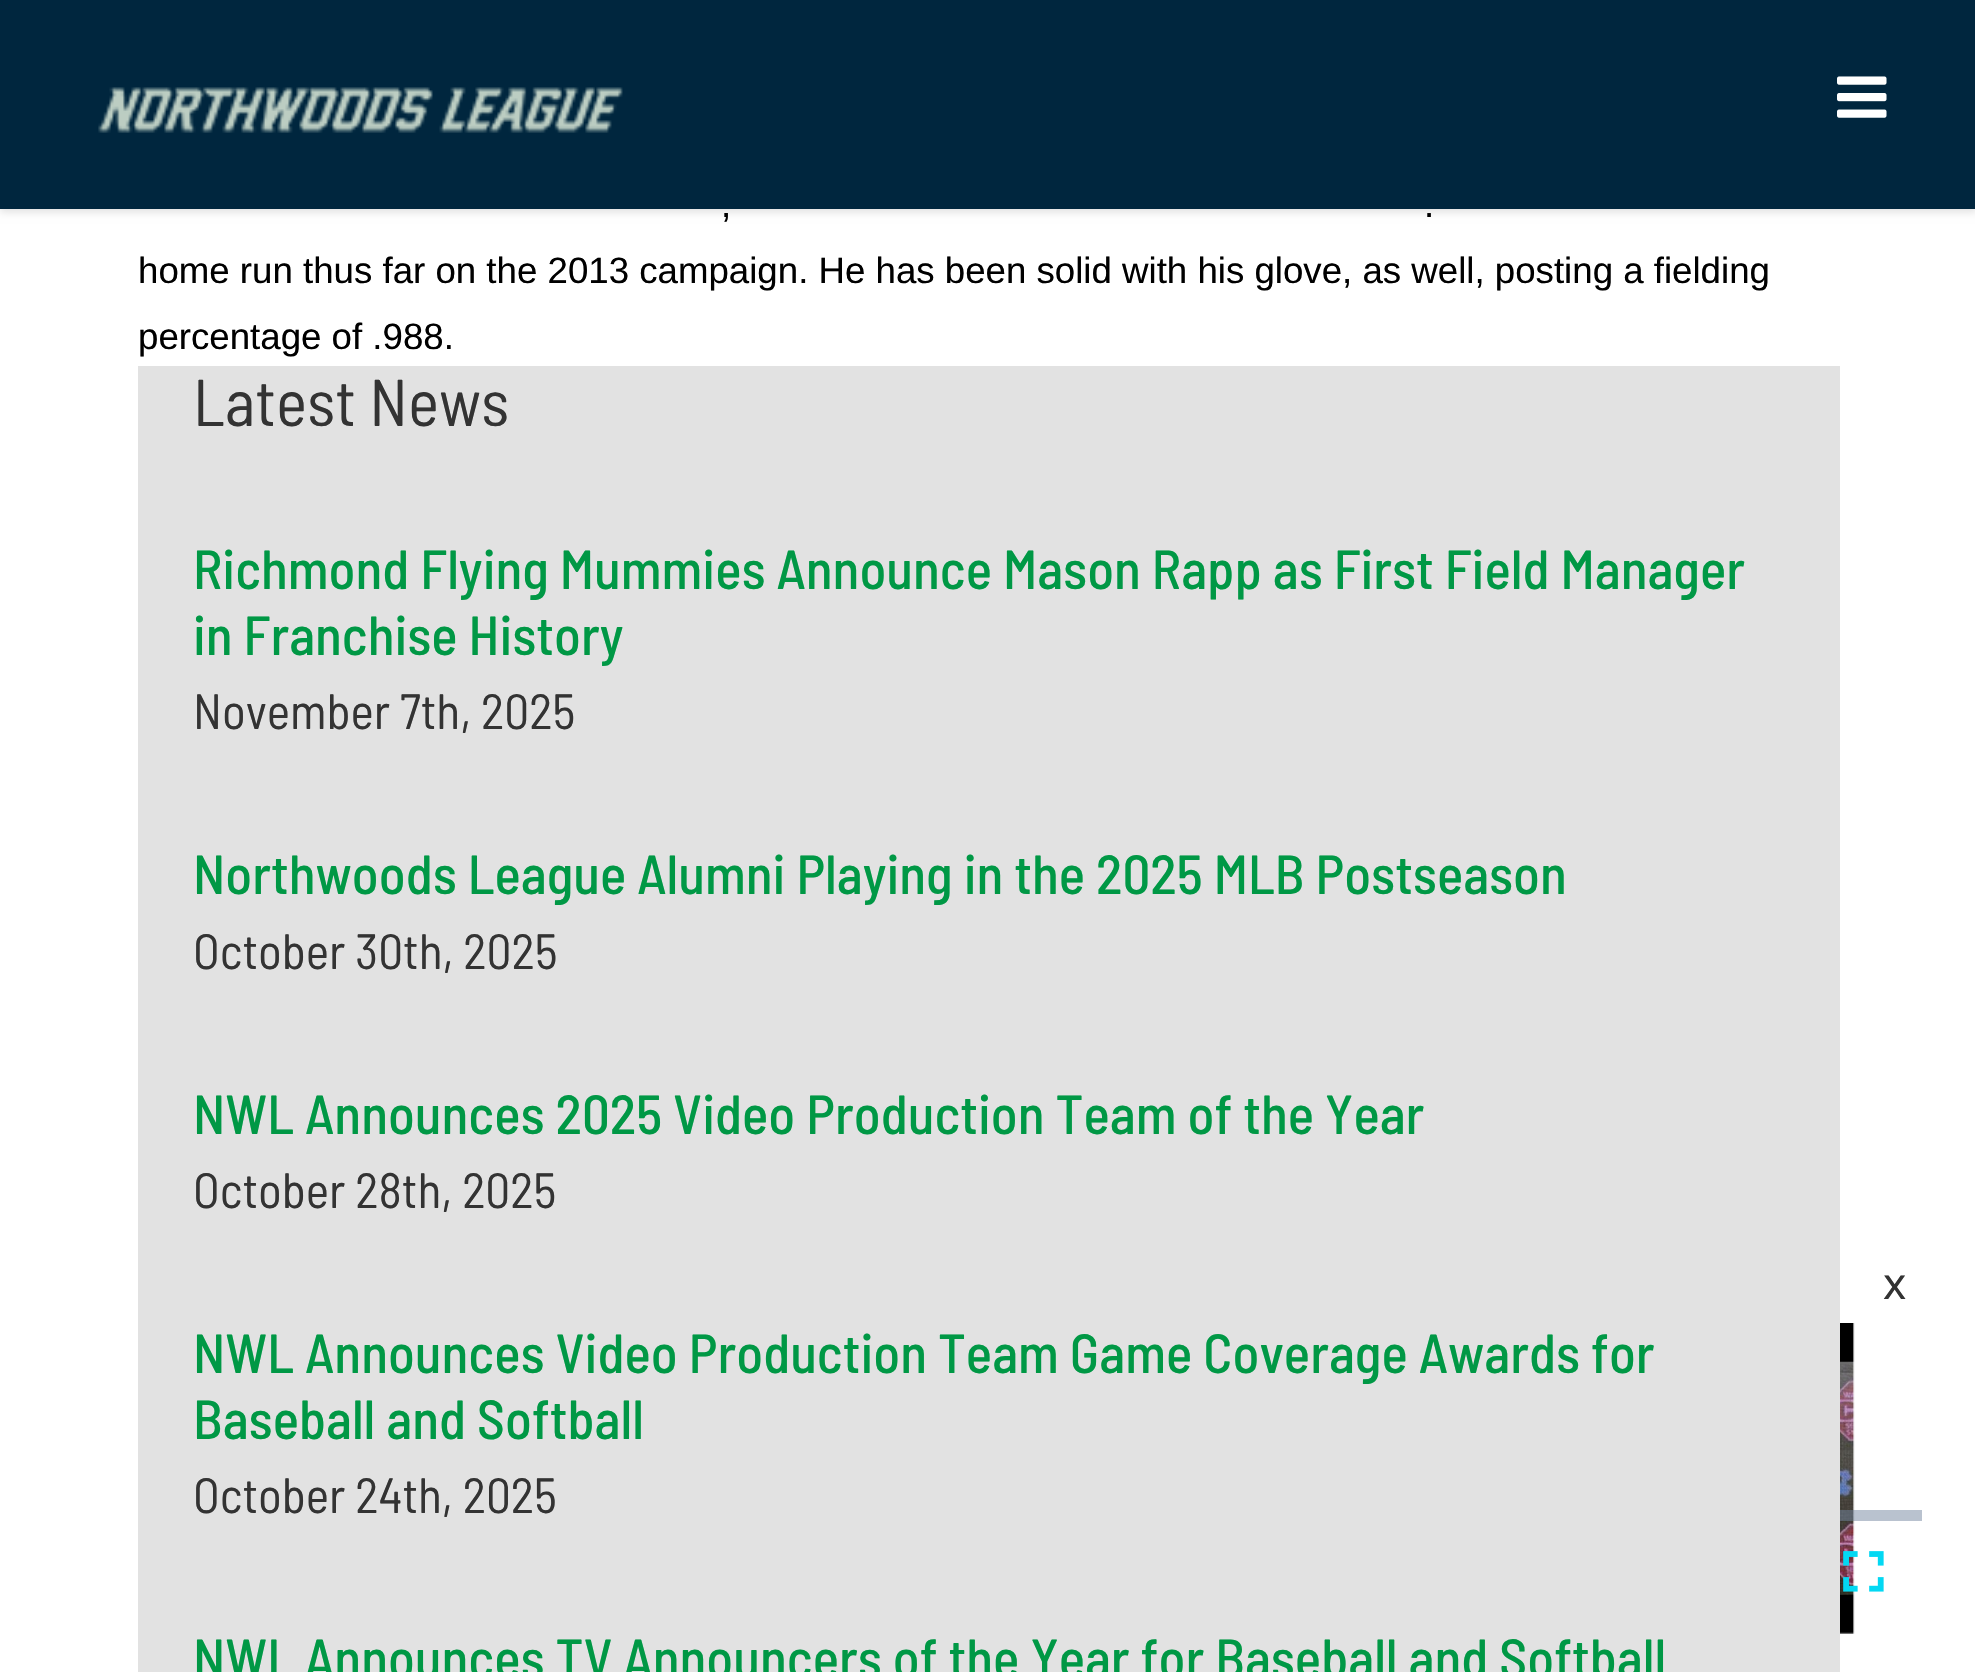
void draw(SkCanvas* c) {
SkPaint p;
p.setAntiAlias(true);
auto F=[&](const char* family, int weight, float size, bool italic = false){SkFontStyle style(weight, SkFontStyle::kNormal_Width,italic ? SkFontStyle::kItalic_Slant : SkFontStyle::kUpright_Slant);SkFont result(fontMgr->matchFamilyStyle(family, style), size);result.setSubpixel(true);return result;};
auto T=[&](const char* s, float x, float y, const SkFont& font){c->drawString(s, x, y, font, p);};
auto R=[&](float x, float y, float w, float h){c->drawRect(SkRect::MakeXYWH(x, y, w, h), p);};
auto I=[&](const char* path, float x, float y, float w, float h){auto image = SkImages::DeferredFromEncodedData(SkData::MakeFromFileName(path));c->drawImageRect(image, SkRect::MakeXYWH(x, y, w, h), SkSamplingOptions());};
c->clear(0xffffffff);
p.setColor(0x1f000000);
p.setMaskFilter(SkMaskFilter::MakeBlur(kNormal_SkBlurStyle, 4));
c->drawRect(SkRect::MakeXYWH(0,3,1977,209),p);
p.setMaskFilter(nullptr);
p.setColor(0xff00263e);
R(0,0,1975,209);
I("1.png",98,87,525,46);
I("2.png",1837,76,50,42);
auto f1 = F("Liberation Sans",400,36.65);
p.setColor(0xff000000);
T(",",721,217,f1);
T(".",1424,217,f1);
T("home run thus far on the 2013 campaign. He has been solid with his glove, as well, posting a fielding",138,283,f1);
T("percentage of .988.",138,349,f1);
auto f2 = F("Noto Sans",400,44);
p.setColor(0xff333333);
T("x",1883,1299,f2);
I("3.png",1840,1323,15,311);
p.setColor(0x8073859f);
R(1840,1510,82,11);
I("4.png",1843,1551,41,41);
p.setColor(0xffe2e2e2);
R(138,366,1702,1306);
auto f3 = F("Barlow Semi Condensed",400,66);
p.setColor(0xff333333);
T("Latest News",193,426,f3);
auto f4 = F("Barlow Semi Condensed",500,55);
p.setColor(0xff009845);
T("Richmond Flying Mummies Announce Mason Rapp as First Field Manager",193,589,f4);
T("in Franchise History",193,655,f4);
auto f5 = F("Barlow Semi Condensed",400,49.5);
p.setColor(0xff333333);
T("November 7th, 2025",193,729,f5);
p.setColor(0xff009845);
T("Northwoods League Alumni Playing in the 2025 MLB Postseason",193,894,f4);
p.setColor(0xff333333);
T("October 30th, 2025",193,969,f5);
p.setColor(0xff009845);
T("NWL Announces 2025 Video Production Team of the Year",193,1134,f4);
p.setColor(0xff333333);
T("October 28th, 2025",193,1208,f5);
p.setColor(0xff009845);
T("NWL Announces Video Production Team Game Coverage Awards for",193,1373,f4);
T("Baseball and Softball",193,1439,f4);
p.setColor(0xff333333);
T("October 24th, 2025",193,1513,f5);
p.setColor(0xff009845);
T("NWL Announces TV Announcers of the Year for Baseball and Softball",193,1678,f4);
}
